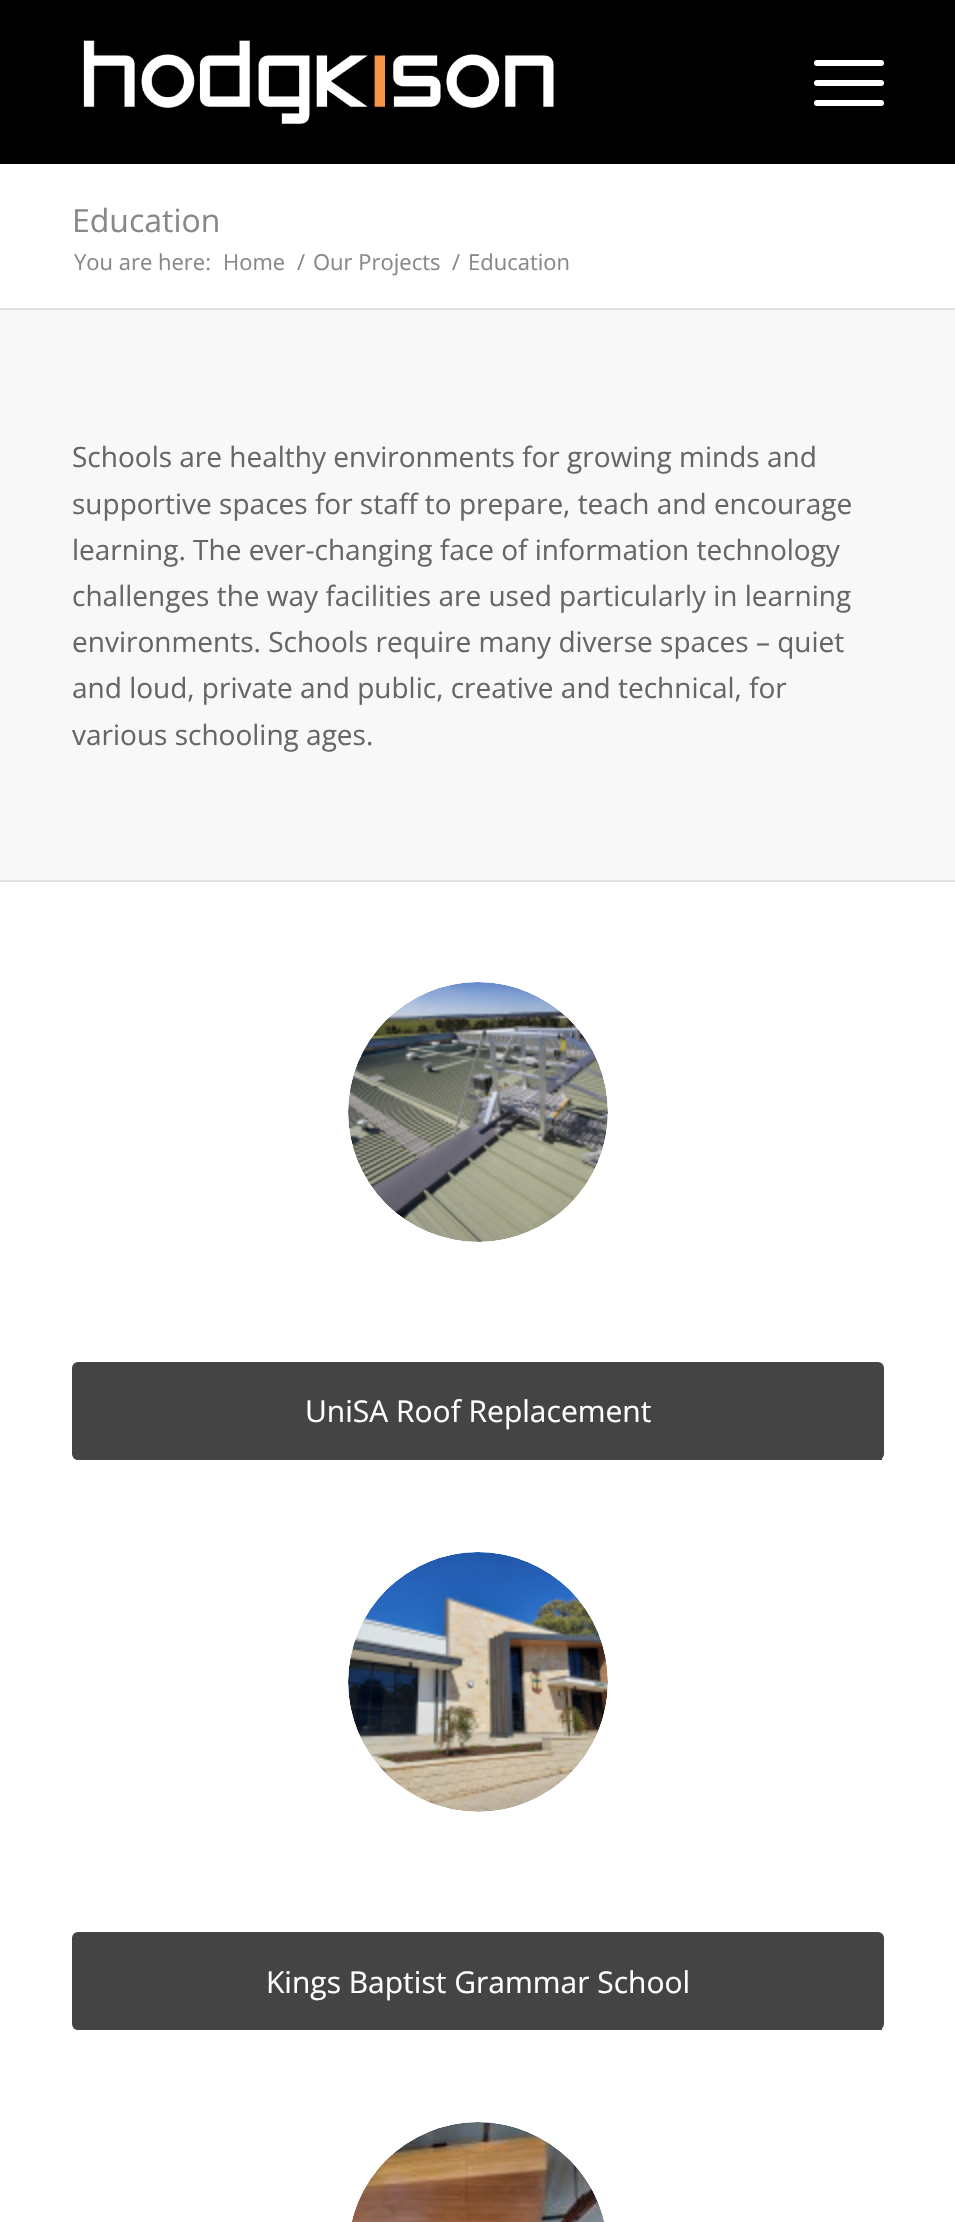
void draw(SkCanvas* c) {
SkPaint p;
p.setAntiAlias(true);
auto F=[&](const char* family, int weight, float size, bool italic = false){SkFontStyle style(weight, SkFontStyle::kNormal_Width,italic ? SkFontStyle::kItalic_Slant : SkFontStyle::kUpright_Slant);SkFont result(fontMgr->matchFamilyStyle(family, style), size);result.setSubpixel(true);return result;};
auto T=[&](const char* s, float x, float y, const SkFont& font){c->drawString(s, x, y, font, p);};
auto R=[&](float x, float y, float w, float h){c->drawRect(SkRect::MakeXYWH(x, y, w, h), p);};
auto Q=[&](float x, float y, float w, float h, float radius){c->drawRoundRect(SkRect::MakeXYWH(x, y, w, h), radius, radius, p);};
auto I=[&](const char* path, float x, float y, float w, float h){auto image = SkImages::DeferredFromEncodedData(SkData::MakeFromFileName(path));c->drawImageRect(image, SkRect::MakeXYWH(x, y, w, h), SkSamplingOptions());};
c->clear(0xfff8f8f8);
p.setColor(0xff000000);
R(0,0,955,164);
I("1.png",83,40,471,84);
p.setColor(0xffffffff);
Q(814,80,70,6,3);
Q(814,60,70,6,3);
Q(814,100,70,6,3);
R(0,164,955,144);
auto f1 = F("Open Sans",400,32);
p.setColor(0xff888888);
T("Education",72,232,f1);
auto f2 = F("Open Sans",400,22);
T("You are here:",74,270,f2);
T("Home",223,270,f2);
T("/",297,270,f2);
T("Our Projects",313,270,f2);
T("/",452,270,f2);
T("Education",468,270,f2);
p.setColor(0xffe1e1e1);
R(0,308,955,2);
auto f3 = F("Open Sans",400,28);
p.setColor(0xff666666);
T("Schools are healthy environments for growing minds and",72,467,f3);
T("supportive spaces for staff to prepare, teach and encourage",72,514,f3);
T("learning. The ever-changing face of information technology",72,560,f3);
T("challenges the way facilities are used particularly in learning",72,606,f3);
T("environments. Schools require many diverse spaces – quiet",72,652,f3);
T("and loud, private and public, creative and technical, for",72,698,f3);
T("various schooling ages.",72,745,f3);
p.setColor(0xffffffff);
R(0,882,955,1340);
p.setColor(0xffe1e1e1);
R(0,880,955,2);
I("2.png",348,982,260,260);
p.setColor(0xff444444);
Q(72,1362,812,98,6);
R(76,1458,806,2);
auto f4 = F("Open Sans",400,30);
p.setColor(0xffffffff);
T("UniSA Roof Replacement",305,1422,f4);
I("3.png",348,1552,260,260);
p.setColor(0xff444444);
Q(72,1932,812,98,6);
R(76,2028,806,2);
p.setColor(0xffffffff);
T("Kings Baptist Grammar School",266,1993,f4);
I("4.png",352,2122,252,100);
}
